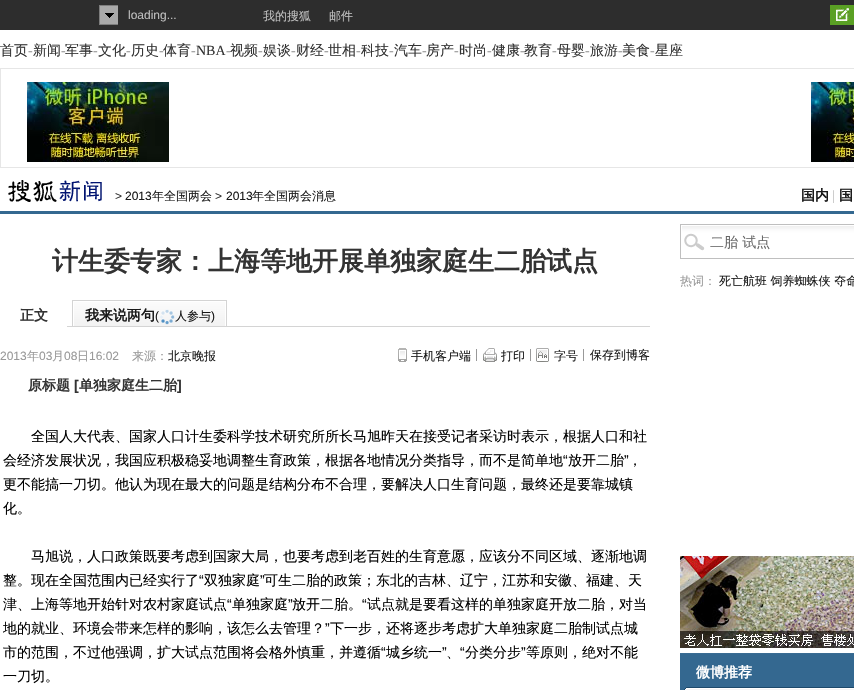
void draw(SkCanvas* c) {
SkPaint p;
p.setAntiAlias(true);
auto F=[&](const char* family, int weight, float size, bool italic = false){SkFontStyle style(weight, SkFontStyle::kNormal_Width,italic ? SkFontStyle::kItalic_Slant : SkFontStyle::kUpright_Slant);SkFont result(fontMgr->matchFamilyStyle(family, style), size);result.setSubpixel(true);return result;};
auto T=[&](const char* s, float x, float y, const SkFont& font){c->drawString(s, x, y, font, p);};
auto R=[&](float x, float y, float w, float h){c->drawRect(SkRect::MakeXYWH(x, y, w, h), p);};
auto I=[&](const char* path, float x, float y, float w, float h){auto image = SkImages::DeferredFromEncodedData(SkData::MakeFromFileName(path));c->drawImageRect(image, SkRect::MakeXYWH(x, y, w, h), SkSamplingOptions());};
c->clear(0xffffffff);
p.setColor(0xff2d2d2d);
R(0,0,854,30);
p.setColor(0xffa9a9a9);
R(100,6,18,18);
I("1.png",105,13,9,5);
p.setColor(0xff7d7d7d);
R(99,5,19,1);
R(99,24,19,1);
R(99,5,1,20);
auto f1 = F("Liberation Sans",400,12);
p.setColor(0xffbfbfbf);
T("loading...",128,19,f1);
auto f2 = F("WenQuanYi Zen Hei",500,12);
T("我的搜狐",263,20,f2);
T("邮件",329,20,f2);
p.setColor(0xff5aa024);
R(830,5,24,20);
I("2.png",836,8,13,13);
auto f3 = F("WenQuanYi Zen Hei",500,14);
p.setColor(0xff333333);
T("首页",0,55,f3);
auto f4 = F("Liberation Serif",400,14);
p.setColor(0xff999999);
T("-",28,55,f4);
p.setColor(0xff333333);
T("新闻",33,55,f3);
p.setColor(0xff999999);
T("-",61,55,f4);
p.setColor(0xff333333);
T("军事",65,55,f3);
p.setColor(0xff999999);
T("-",93,55,f4);
p.setColor(0xff333333);
T("文化",98,55,f3);
p.setColor(0xff999999);
T("-",126,55,f4);
p.setColor(0xff333333);
T("历史",131,55,f3);
p.setColor(0xff999999);
T("-",159,55,f4);
p.setColor(0xff333333);
T("体育",163,55,f3);
p.setColor(0xff999999);
T("-",191,55,f4);
p.setColor(0xff333333);
T("NBA",196,55,f4);
p.setColor(0xff999999);
T("-",226,55,f4);
p.setColor(0xff333333);
T("视频",230,55,f3);
p.setColor(0xff999999);
T("-",258,55,f4);
p.setColor(0xff333333);
T("娱谈",263,55,f3);
p.setColor(0xff999999);
T("-",291,55,f4);
p.setColor(0xff333333);
T("财经",296,55,f3);
p.setColor(0xff999999);
T("-",324,55,f4);
p.setColor(0xff333333);
T("世相",328,55,f3);
p.setColor(0xff999999);
T("-",356,55,f4);
p.setColor(0xff333333);
T("科技",361,55,f3);
p.setColor(0xff999999);
T("-",389,55,f4);
p.setColor(0xff333333);
T("汽车",394,55,f3);
p.setColor(0xff999999);
T("-",422,55,f4);
p.setColor(0xff333333);
T("房产",426,55,f3);
p.setColor(0xff999999);
T("-",454,55,f4);
p.setColor(0xff333333);
T("时尚",459,55,f3);
p.setColor(0xff999999);
T("-",487,55,f4);
p.setColor(0xff333333);
T("健康",492,55,f3);
p.setColor(0xff999999);
T("-",520,55,f4);
p.setColor(0xff333333);
T("教育",524,55,f3);
p.setColor(0xff999999);
T("-",552,55,f4);
p.setColor(0xff333333);
T("母婴",557,55,f3);
p.setColor(0xff999999);
T("-",585,55,f4);
p.setColor(0xff333333);
T("旅游",590,55,f3);
p.setColor(0xff999999);
T("-",618,55,f4);
p.setColor(0xff333333);
T("美食",622,55,f3);
p.setColor(0xff999999);
T("-",650,55,f4);
p.setColor(0xff333333);
T("星座",655,55,f3);
p.setStroke(true);
p.setStrokeWidth(1);
p.setColor(0xffe6e6e6);
c->drawRect(SkRect::MakeXYWH(.5,68.5,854,99),p);
I("3.png",27,82,142,80);
I("4.png",811,82,43,80);
p.setStroke(false);
p.setColor(0xff346890);
R(0,211,854,3);
I("5.png",8,180,94,22);
p.setColor(0xff333333);
T(">",115,200,f1);
p.setColor(0xff191919);
T("2013",125,200,f1);
T("年全国两会",152,200,f2);
p.setColor(0xff333333);
T(">",215,200,f1);
p.setColor(0xff191919);
T("2013",226,200,f1);
T("年全国两会消息",252,200,f2);
auto f5 = F("WenQuanYi Zen Hei",700,14);
T("国内",801,200,f5);
p.setColor(0xffbfbfbf);
T("|",832,200,f4);
p.setColor(0xff191919);
T("国",839,200,f5);
auto f6 = F("WenQuanYi Zen Hei",700,26);
p.setColor(0xff333333);
T("计生委专家：上海等地开展单独家庭生二胎试点",52,270,f6);
p.setColor(0xffd4d4d4);
R(67,326,583,1);
p.setColor(0xff333333);
T("正文",20,320,f5);
I("6.png",72,300,155,26);
I("7.png",225,301,2,25);
p.setColor(0xff191919);
T("我来说两句",85,320,f5);
T("(",155,320,f1);
I("8.png",160,309,15,16);
T("人参与",175,320,f2);
T(")",211,320,f1);
p.setColor(0xff999999);
T("2013",0,360,f1);
T("年",27,360,f2);
T("03",39,360,f1);
T("月",52,360,f2);
T("08",64,360,f1);
T("日",77,360,f2);
T("16:02",89,360,f1);
T("来源：",132,360,f2);
p.setColor(0xff191919);
T("北京晚报",168,360,f2);
p.setColor(0xff999999);
R(476,349,1,12);
I("9.png",398,348,9,14);
p.setColor(0xff191919);
T("手机客户端",411,360,f2);
I("10.png",483,348,14,14);
T("打印",501,360,f2);
p.setColor(0xff999999);
R(530,349,1,12);
I("11.png",536,348,13,14);
p.setColor(0xff191919);
T("字号",554,360,f2);
p.setColor(0xff999999);
R(583,349,1,12);
p.setColor(0xff191919);
T("保存到博客",590,359,f2);
p.setColor(0xff333333);
T("原标题",28,390,f5);
auto f7 = F("Liberation Sans",700,14);
T("[",74,390,f7);
T("单独家庭生二胎",79,390,f5);
T("]",177,390,f7);
p.setColor(0xff000000);
T("全国人大代表、国家人口计生委科学技术研究所所长马旭昨天在接受记者采访时表示，根据人口和社",31,441,f3);
T("会经济发展状况，我国应积极稳妥地调整生育政策，根据各地情况分类指导，而不是简单地",3,465,f3);
auto f8 = F("Liberation Sans",400,14);
T("“",563,465,f8);
T("放开二胎",568,465,f3);
T("”",624,465,f8);
T("，",628,465,f3);
T("更不能搞一刀切。他认为现在最大的问题是结构分布不合理，要解决人口生育问题，最终还是要靠城镇",3,489,f3);
T("化。",3,513,f3);
T("马旭说，人口政策既要考虑到国家大局，也要考虑到老百姓的生育意愿，应该分不同区域、逐渐地调",31,561,f3);
T("整。现在全国范围内已经实行了",3,585,f3);
T("“",199,585,f8);
T("双独家庭",204,585,f3);
T("”",260,585,f8);
T("可生二胎的政策；东北的吉林、辽宁，江苏和安徽、福建、天",264,585,f3);
T("津、上海等地开始针对农村家庭试点",3,609,f3);
T("“",227,609,f8);
T("单独家庭",232,609,f3);
T("”",288,609,f8);
T("放开二胎。",292,609,f3);
T("“",362,609,f8);
T("试点就是要看这样的单独家庭开放二胎，对当",367,609,f3);
T("地的就业、环境会带来怎样的影响，该怎么去管理？",3,633,f3);
T("”",325,633,f8);
T("下一步，还将逐步考虑扩大单独家庭二胎制试点城",330,633,f3);
T("市的范围，不过他强调，扩大试点范围将会格外慎重，并遵循",3,657,f3);
T("“",381,657,f8);
T("城乡统一",386,657,f3);
T("”",442,657,f8);
T("“",460,657,f8);
T("分类分步",465,657,f3);
T("”",521,657,f8);
T("等原则，绝对不能",526,657,f3);
T("、",446,657,f3);
T("一刀切。",3,681,f3);
I("12.png",680,224,174,35);
p.setColor(0xff666666);
T("二胎 试点",710,247,f3);
p.setColor(0xff999999);
T("热词：",680,285,f2);
p.setColor(0xff191919);
T("死亡航班 饲养蜘蛛侠 夺命",719,285,f2);
I("13.png",680,556,174,92);
I("14.png",680,653,174,37);
p.setColor(0xffffffff);
T("微博推荐",696,677,f5);
}
